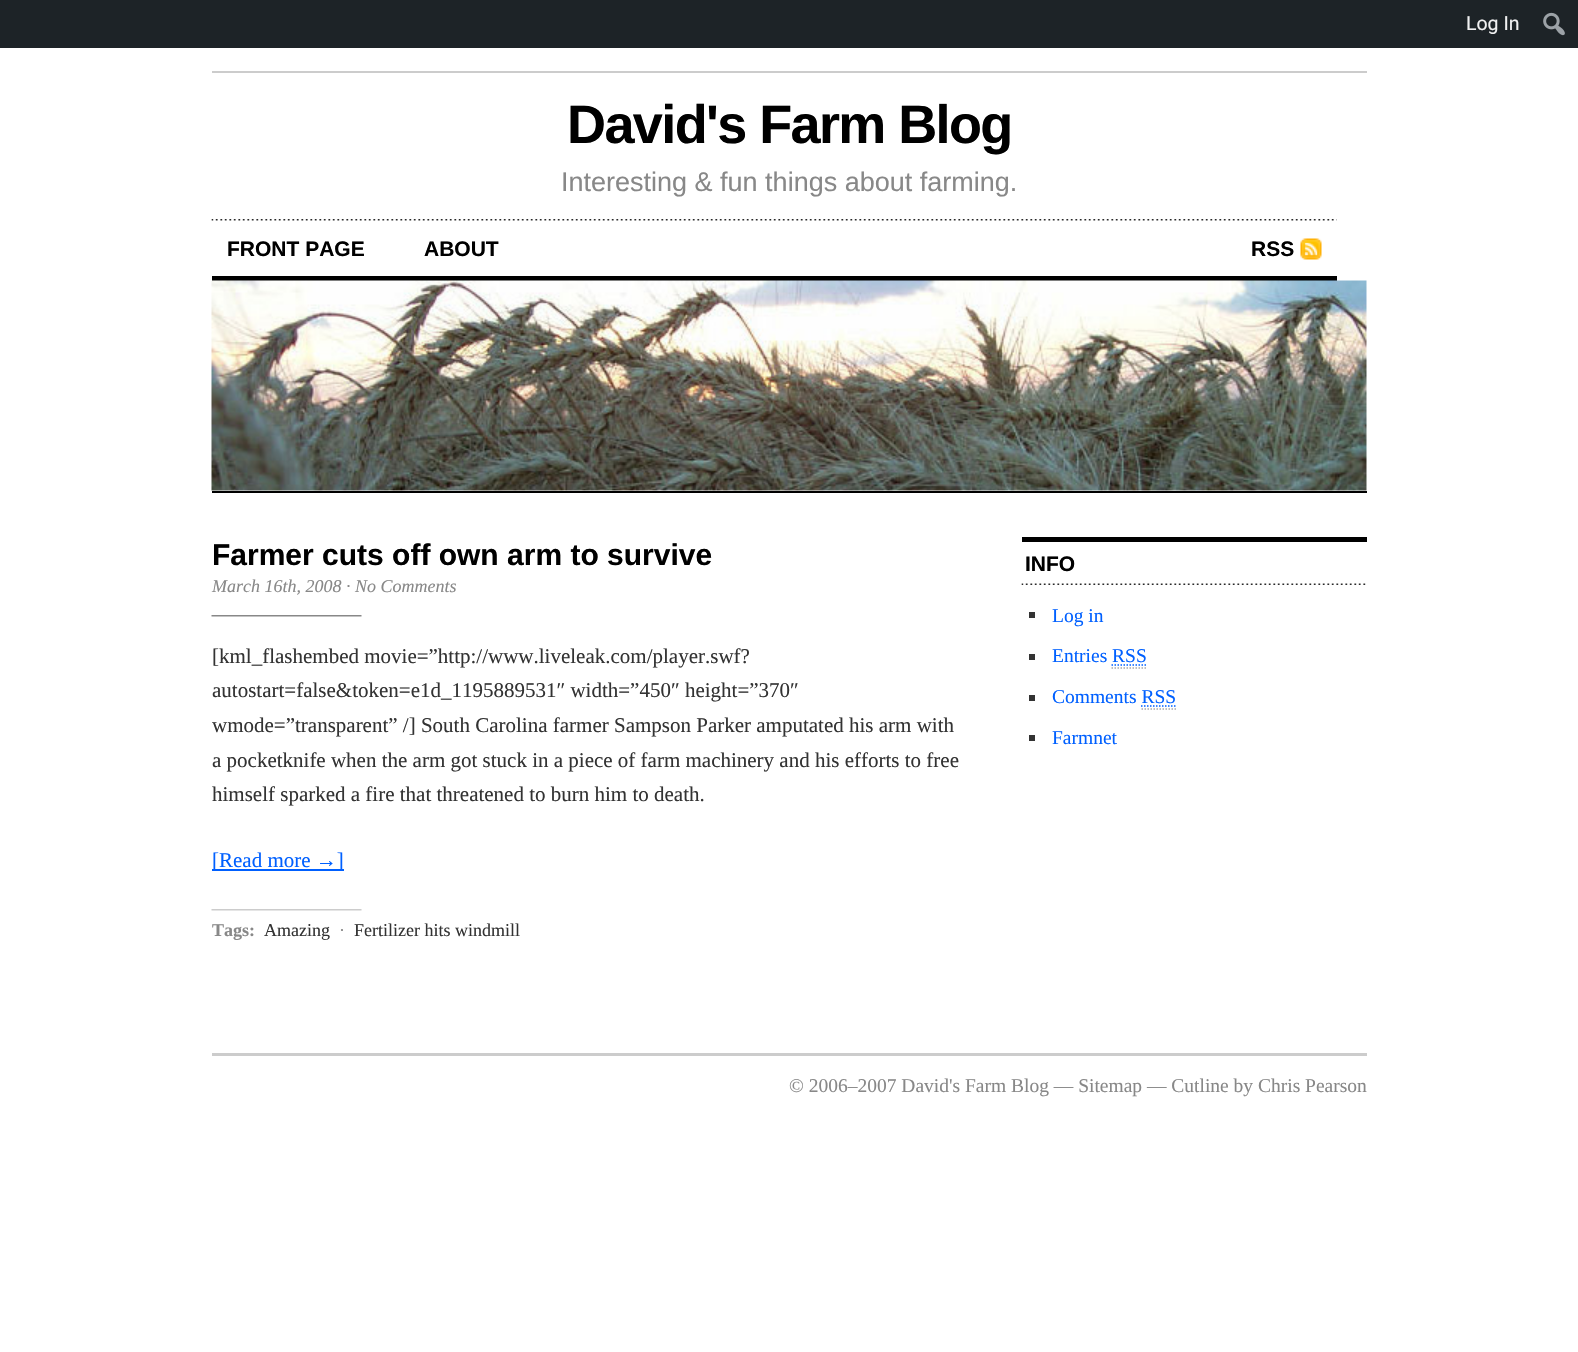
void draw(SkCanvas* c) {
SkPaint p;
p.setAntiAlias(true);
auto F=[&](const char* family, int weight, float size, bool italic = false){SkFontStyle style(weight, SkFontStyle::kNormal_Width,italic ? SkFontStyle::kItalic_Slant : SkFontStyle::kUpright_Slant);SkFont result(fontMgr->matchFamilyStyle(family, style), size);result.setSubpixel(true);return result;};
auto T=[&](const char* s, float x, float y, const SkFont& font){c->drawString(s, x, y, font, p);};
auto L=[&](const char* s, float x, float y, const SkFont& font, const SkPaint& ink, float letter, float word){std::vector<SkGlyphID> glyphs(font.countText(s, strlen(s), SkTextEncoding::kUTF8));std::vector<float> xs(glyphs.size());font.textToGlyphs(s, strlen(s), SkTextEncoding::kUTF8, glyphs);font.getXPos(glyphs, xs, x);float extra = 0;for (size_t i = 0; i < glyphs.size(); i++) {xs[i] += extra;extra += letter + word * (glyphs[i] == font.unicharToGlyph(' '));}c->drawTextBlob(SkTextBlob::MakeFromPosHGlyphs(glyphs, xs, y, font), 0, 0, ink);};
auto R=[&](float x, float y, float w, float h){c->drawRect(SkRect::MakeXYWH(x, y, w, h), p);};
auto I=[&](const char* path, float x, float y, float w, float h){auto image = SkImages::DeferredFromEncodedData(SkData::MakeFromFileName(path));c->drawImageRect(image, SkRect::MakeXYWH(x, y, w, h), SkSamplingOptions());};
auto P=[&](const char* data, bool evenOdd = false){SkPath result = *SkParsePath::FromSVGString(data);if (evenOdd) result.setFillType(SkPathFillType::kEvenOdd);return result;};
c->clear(0xffffffff);
p.setColor(0xffcccccc);
R(212,1053,1155,3);
p.setColor(0xff1d2327);
R(0,0,1578,48);
auto f1 = F("Roboto",400,19.5);
p.setColor(0xfff0f0f1);
T("Log In",1466,30,f1);
I("1.png",1543,12,22,24);
auto f2 = F("Liberation Serif",400,19.5);
p.setColor(0xff888888);
T("© 2006–2007 David's Farm Blog — Sitemap — Cutline by Chris Pearson",789,1092,f2);
p.setColor(0xffcccccc);
R(212,71,1155,2);
auto f3 = F("Liberation Sans",700,54);
p.setColor(0xff000000);
L("David's Farm Blog",567,143,f3,p,-1.6,0);
auto f4 = F("Liberation Sans",400,27);
p.setColor(0xff888888);
T("Interesting & fun things about farming.",561,191,f4);
I("2.png",211,219,1126,2);
p.setColor(0xff000000);
R(212,276,1125,5);
auto f5 = F("Liberation Sans",700,21);
T("FRONT PAGE",227,256,f5);
T("ABOUT",424,256,f5);
T("RSS",1251,256,f5);
I("3.png",1300,238,22,22);
R(212,491,1155,2);
I("4.png",211,280,1156,211);
auto f6 = F("Liberation Sans",700,30);
T("Farmer cuts off own arm to survive",212,565,f6);
I("5.png",211,615,151,2);
auto f7 = F("Liberation Serif",400,18,true);
p.setColor(0xff888888);
T("March 16th, 2008 · No Comments",212,592,f7);
auto f8 = F("Liberation Serif",400,21);
p.setColor(0xff333333);
T("[kml_flashembed movie=”http://www.liveleak.com/player.swf?",212,663,f8);
T("autostart=false&token=e1d_1195889531″ width=”450″ height=”370″",212,697,f8);
T("wmode=”transparent” /] South Carolina farmer Sampson Parker amputated his arm with",212,732,f8);
T("a pocketknife when the arm got stuck in a piece of farm machinery and his efforts to free",212,767,f8);
T("himself sparked a fire that threatened to burn him to death.",212,801,f8);
p.setColor(0xff0060ff);
R(212,869,132,2);
T("[Read more →]",212,867,f8);
I("6.png",211,909,151,2);
auto f9 = F("Liberation Serif",700,18);
p.setColor(0xff888888);
T("Tags:",212,936,f9);
auto f10 = F("Liberation Serif",400,18);
p.setColor(0xff333333);
T("Amazing",264,936,f10);
p.setColor(0xff888888);
T("·",339,936,f10);
p.setColor(0xff333333);
T("Fertilizer hits windmill",354,936,f10);
I("7.png",1021,583,345,2);
p.setColor(0xff000000);
R(1022,537,345,5);
T("INFO",1025,571,f5);
p.setColor(0xff333333);
R(1029,612,6,6);
p.setColor(0xff0060ff);
T("Log in",1052,622,f2);
p.setColor(0xff333333);
R(1029,654,6,6);
p.setColor(0xff0060ff);
T("Entries RSS",1052,662,f2);
p.setStroke(true);
p.setStrokeWidth(1.5);
p.setColor(0xffaaaaaa);
p.setPathEffect(SkDashPathEffect::Make({{1.5f,1.5f}}, 0));
c->drawPath(P("M1111.5 668h34.5"),p);
p.setPathEffect(nullptr);
p.setColor(0xff0060ff);
p.setPathEffect(SkDashPathEffect::Make({{1.5f,1.5f}}, 0));
c->drawPath(P("M1111.5 665h35"),p);
p.setPathEffect(nullptr);
p.setStroke(false);
p.setColor(0xff333333);
R(1029,695,6,6);
p.setColor(0xff0060ff);
T("Comments RSS",1052,703,f2);
p.setStroke(true);
p.setColor(0xffaaaaaa);
p.setPathEffect(SkDashPathEffect::Make({{1.5f,1.5f}}, 0));
c->drawPath(P("M1141.5 709h34.5"),p);
p.setPathEffect(nullptr);
p.setColor(0xff0060ff);
p.setPathEffect(SkDashPathEffect::Make({{1.5f,1.5f}}, 0));
c->drawPath(P("M1141 706h34.5"),p);
p.setPathEffect(nullptr);
p.setStroke(false);
p.setColor(0xff333333);
R(1029,735,6,6);
p.setColor(0xff0060ff);
T("Farmnet",1052,744,f2);
}
